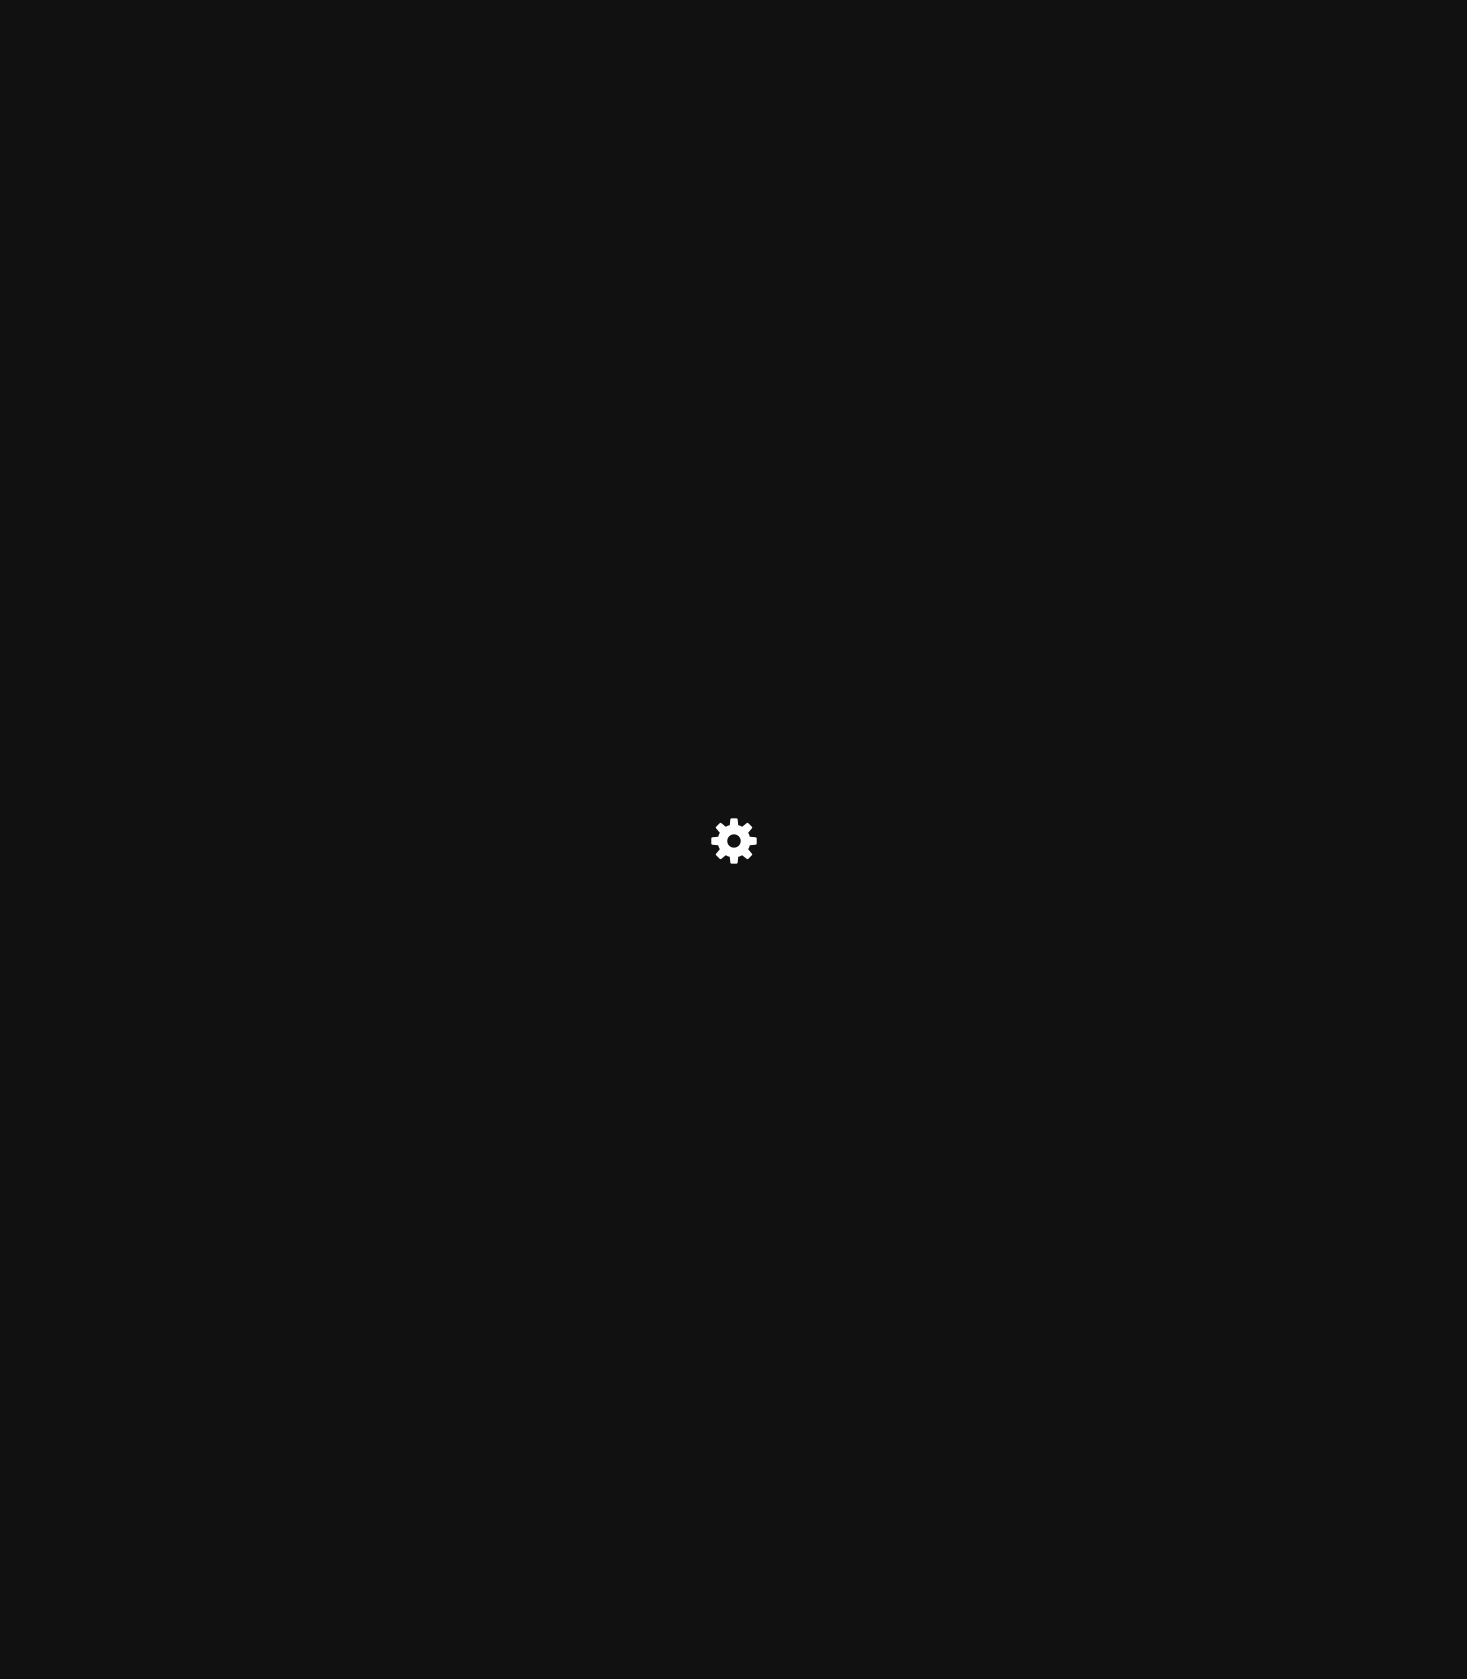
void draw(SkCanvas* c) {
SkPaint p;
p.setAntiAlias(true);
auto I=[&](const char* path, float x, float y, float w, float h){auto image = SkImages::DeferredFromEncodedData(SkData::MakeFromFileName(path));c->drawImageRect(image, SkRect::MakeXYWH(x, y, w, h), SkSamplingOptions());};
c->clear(0xff111111);
I("1.png",711,818,46,46);
}
